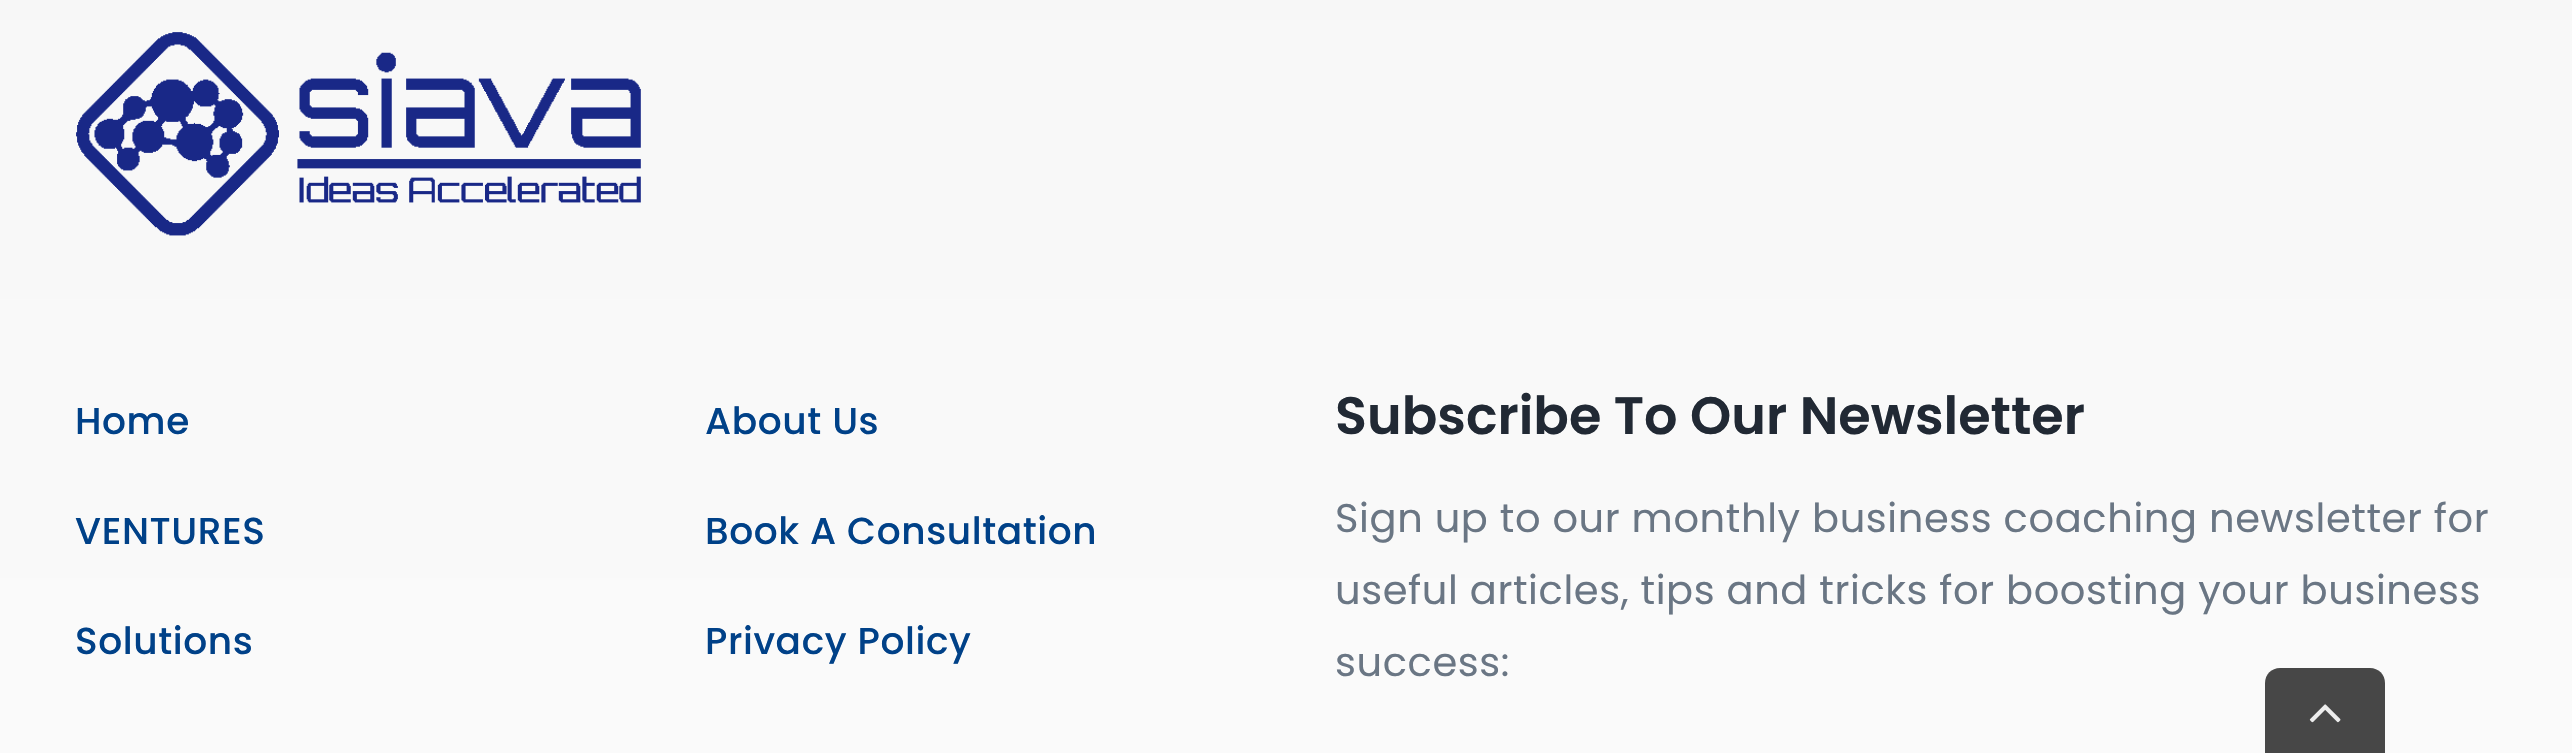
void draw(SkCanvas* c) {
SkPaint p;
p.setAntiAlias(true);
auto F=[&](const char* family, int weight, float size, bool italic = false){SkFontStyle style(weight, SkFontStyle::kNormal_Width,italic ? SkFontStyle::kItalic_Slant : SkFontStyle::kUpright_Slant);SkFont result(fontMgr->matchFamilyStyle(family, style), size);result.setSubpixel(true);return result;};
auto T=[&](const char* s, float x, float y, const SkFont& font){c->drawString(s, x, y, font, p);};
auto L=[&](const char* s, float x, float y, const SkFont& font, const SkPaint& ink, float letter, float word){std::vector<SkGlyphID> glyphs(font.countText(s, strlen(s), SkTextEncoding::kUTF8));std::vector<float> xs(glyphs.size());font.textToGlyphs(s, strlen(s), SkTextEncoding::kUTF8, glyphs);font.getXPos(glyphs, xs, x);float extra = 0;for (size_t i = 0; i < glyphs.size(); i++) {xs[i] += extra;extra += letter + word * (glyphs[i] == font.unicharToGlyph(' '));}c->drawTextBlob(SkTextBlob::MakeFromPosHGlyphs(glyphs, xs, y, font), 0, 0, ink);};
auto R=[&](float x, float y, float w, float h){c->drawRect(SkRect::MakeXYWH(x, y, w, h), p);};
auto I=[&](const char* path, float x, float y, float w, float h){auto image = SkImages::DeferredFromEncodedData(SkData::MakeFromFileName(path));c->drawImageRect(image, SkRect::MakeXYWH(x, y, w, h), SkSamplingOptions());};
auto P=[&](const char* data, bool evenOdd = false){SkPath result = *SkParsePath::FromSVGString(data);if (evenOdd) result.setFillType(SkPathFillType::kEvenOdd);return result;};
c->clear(0xffffffff);
{
const SkColor colors[] = {0xfff7f7f7,0xffffffff};
const float stops[] = {0,1};
const SkPoint ends[] = {{1286,-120}, {1286,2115}};
p.setShader(SkGradientShader::MakeLinear(ends, colors, stops, 2, SkTileMode::kClamp));
p.setAlpha(255);
}
R(0,0,2572,753);
I("1.png",76,32,565,204);
auto f1 = F("Poppins",500,37.5);
p.setShader(nullptr);
p.setColor(0xff004188);
L("Home",75,434,f1,p,.6,0);
L("VENTURES",75,544,f1,p,.6,0);
L("Solutions",75,654,f1,p,.6,0);
L("About Us",705,434,f1,p,.6,0);
L("Book A Consultation",705,544,f1,p,.6,0);
L("Privacy Policy",705,654,f1,p,.6,0);
auto f2 = F("Poppins",600,52.5);
p.setColor(0xff212934);
T("Subscribe To Our Newsletter",1335,434,f2);
auto f3 = F("Poppins",400,40);
p.setColor(0xff6a7684);
L("Sign up to our monthly business coaching newsletter for",1335,532,f3,p,.6,0);
L("useful articles, tips and tricks for boosting your business",1335,604,f3,p,.6,0);
L("success:",1335,676,f3,p,.6,0);
p.setColor(0xff474747);
c->drawPath(P("M2280 668h90c8.5 0 15 6.5 15 15v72h-120v-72c0-8.5 6.5-15 15-15z"),p);
I("2.png",2309,704,32,19);
}
